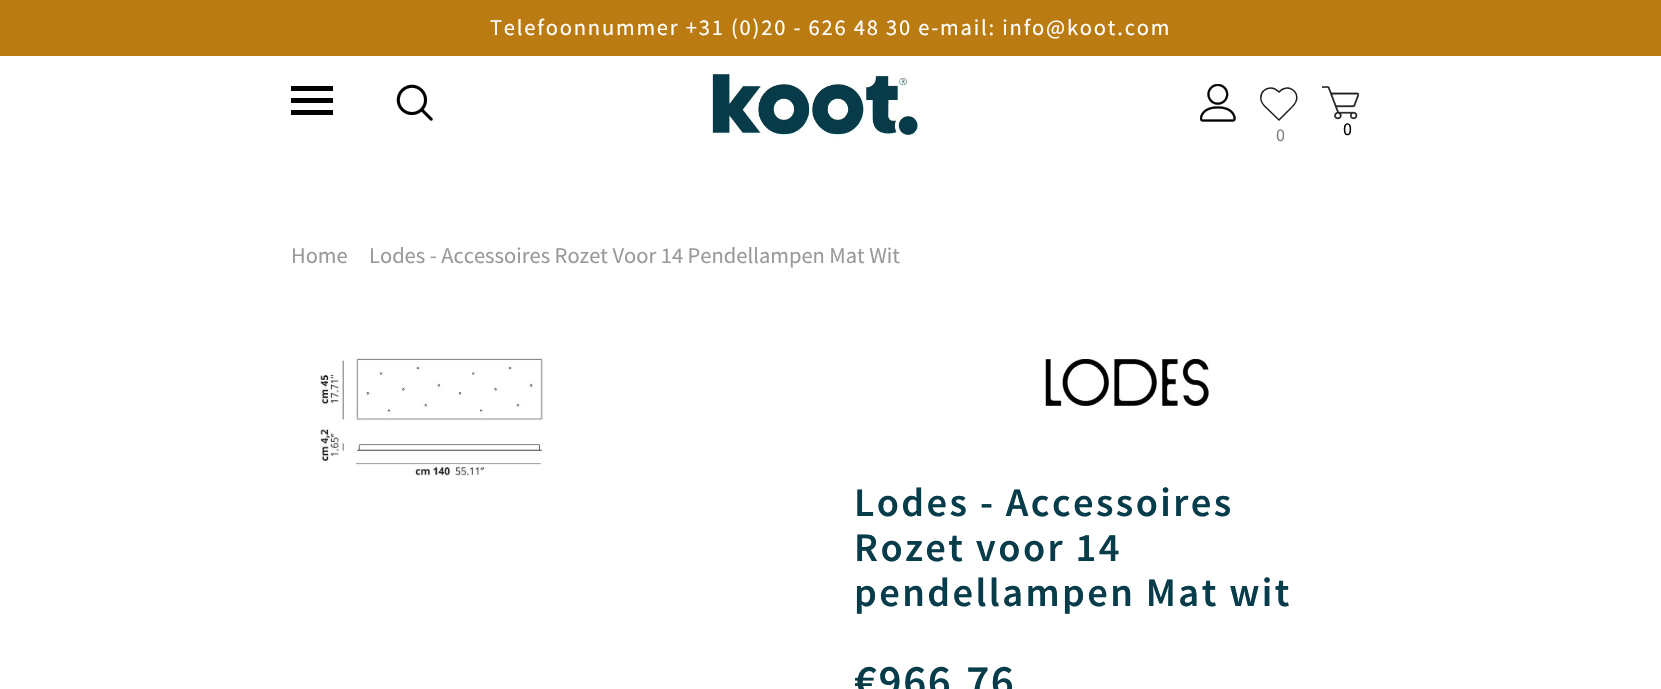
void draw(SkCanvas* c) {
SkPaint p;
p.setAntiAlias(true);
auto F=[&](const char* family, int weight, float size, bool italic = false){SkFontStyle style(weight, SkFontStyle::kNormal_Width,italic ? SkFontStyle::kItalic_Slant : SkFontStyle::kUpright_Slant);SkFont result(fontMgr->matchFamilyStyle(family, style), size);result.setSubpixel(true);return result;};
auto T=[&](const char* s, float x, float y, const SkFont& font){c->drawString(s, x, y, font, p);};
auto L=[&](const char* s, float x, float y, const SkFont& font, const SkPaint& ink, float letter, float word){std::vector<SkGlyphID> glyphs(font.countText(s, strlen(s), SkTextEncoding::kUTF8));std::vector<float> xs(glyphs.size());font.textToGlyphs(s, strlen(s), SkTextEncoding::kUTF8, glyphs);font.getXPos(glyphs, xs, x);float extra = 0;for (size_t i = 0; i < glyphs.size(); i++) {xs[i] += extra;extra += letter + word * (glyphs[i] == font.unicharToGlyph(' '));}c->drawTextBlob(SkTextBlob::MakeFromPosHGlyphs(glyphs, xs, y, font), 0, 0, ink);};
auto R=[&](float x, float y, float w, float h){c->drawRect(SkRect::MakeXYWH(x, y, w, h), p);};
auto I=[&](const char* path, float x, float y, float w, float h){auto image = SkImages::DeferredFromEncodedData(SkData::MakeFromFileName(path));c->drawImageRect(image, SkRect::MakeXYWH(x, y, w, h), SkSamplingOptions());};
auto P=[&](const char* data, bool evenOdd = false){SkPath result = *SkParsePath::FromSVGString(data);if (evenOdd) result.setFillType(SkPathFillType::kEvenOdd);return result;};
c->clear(0xffffffff);
p.setColor(0xffb97b12);
R(0,0,1661,56);
auto f1 = F("Source Sans Pro",400,22.5);
p.setColor(0xffffffff);
L("Telefoonnummer +31 (0)20 - 626 48 30 e-mail: info@koot.com",490,35,f1,p,1.8,0);
p.setColor(0xff000000);
R(291,86,42,5);
R(291,98,42,5);
R(291,110,42,5);
I("1.png",396,84,37,37);
I("2.png",711,73,207,65);
I("3.png",1200,84,36,38);
p.setStroke(true);
p.setStrokeWidth(1.5);
p.setStrokeCap(SkPaint::kRound_Cap);
p.setColor(0xff1e1e1c);
c->drawPath(P("M1264.5 106l14.5 14l10-10c2.5-2.5 5.5-5 7-8.5c4.5-10.5-9.5-18.5-17-9.5c-11-11-25 3-14.5 14z"),p);
auto f2 = F("Source Sans Pro",400,18);
p.setStroke(false);
p.setColor(0xff808080);
T("0",1276,141,f2);
I("4.png",1322,86,37,34);
p.setColor(0xff000000);
T("0",1343,135,f2);
p.setColor(0xff999999);
T("Home",291,263,f1);
T("Lodes - Accessoires Rozet Voor 14 Pendellampen Mat Wit",369,263,f1);
I("5.png",320,358,224,118);
I("6.png",1045,358,165,49);
auto f3 = F("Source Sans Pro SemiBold",600,40.5);
p.setColor(0xff073c4a);
L("Lodes - Accessoires",854,516,f3,p,2.4,0);
L("Rozet voor 14",854,561,f3,p,2.4,0);
L("pendellampen Mat wit",854,606,f3,p,2.4,0);
auto f4 = F("Source Sans Pro SemiBold",600,45);
L("€966,76",854,696,f4,p,1.5,0);
}
